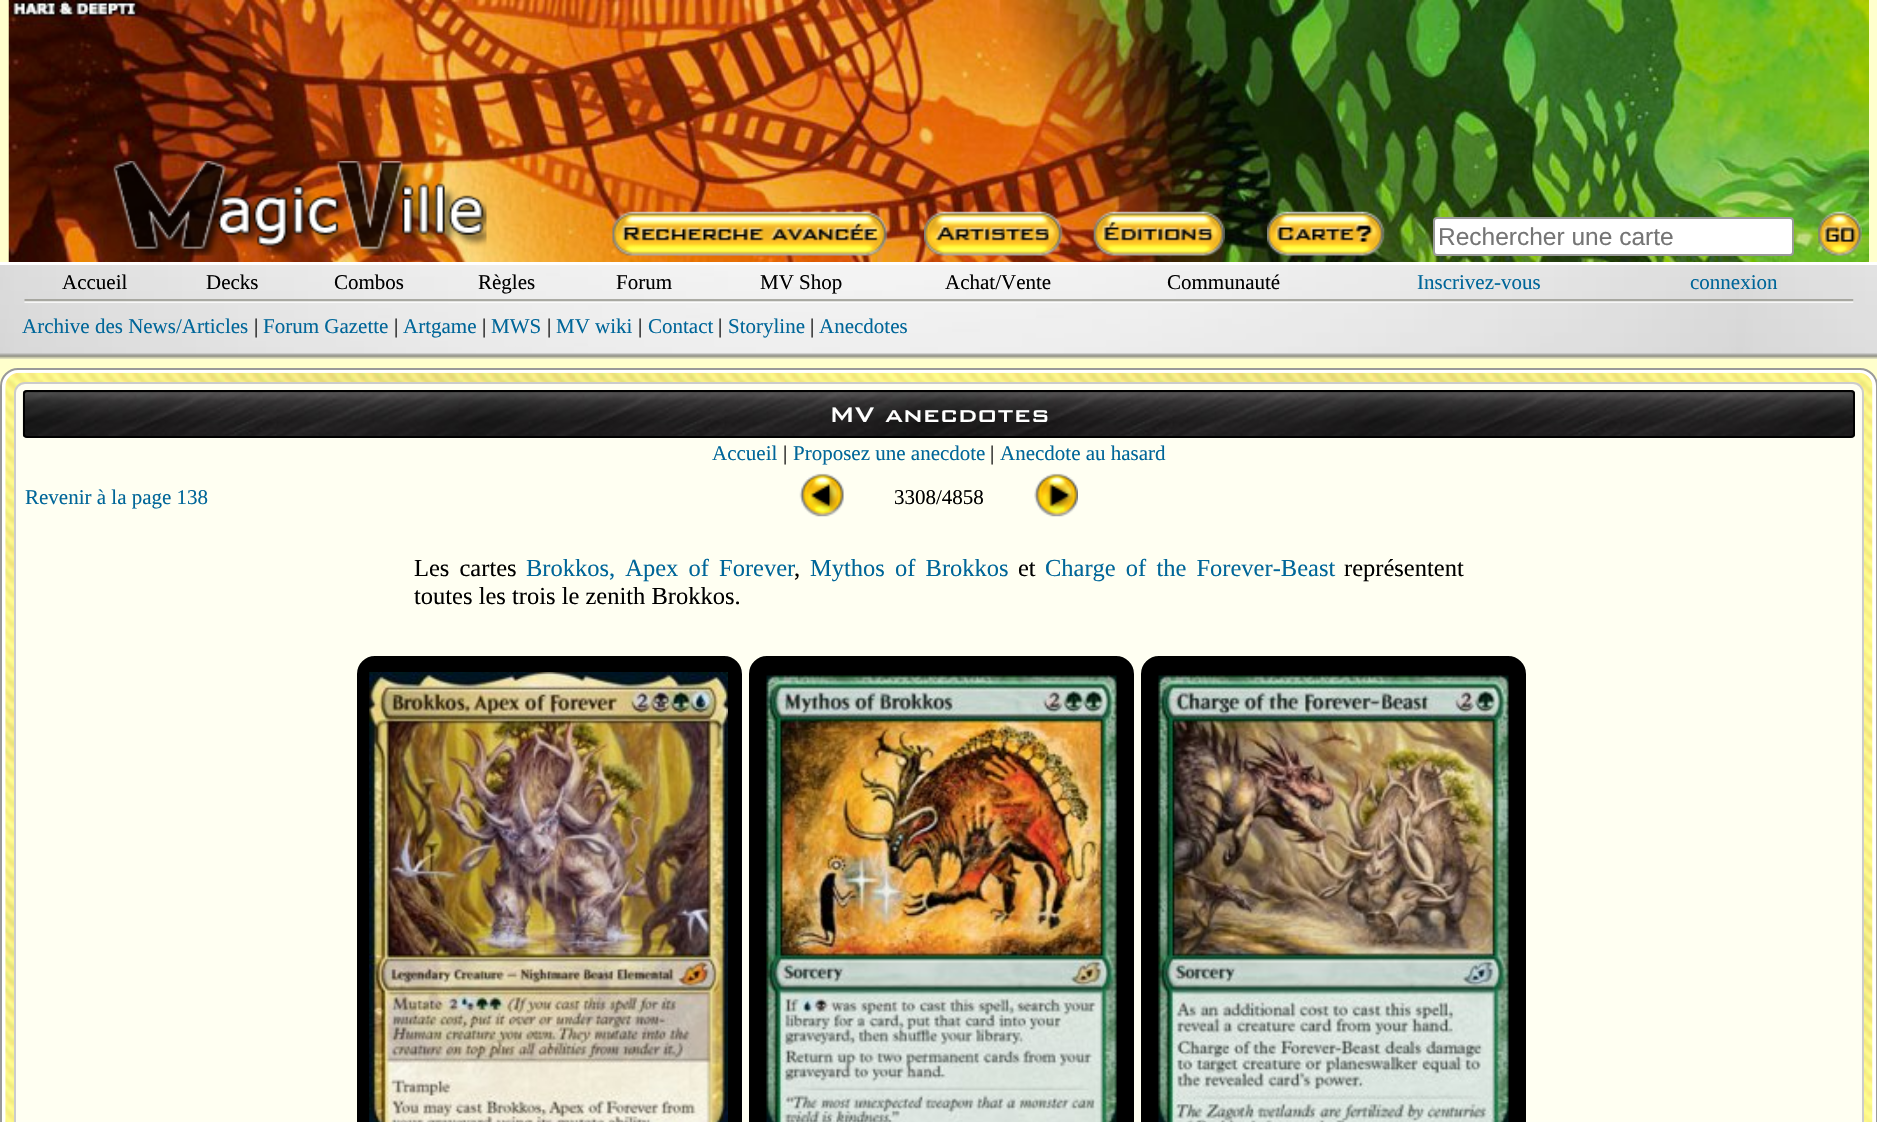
void draw(SkCanvas* c) {
SkPaint p;
p.setAntiAlias(true);
auto F=[&](const char* family, int weight, float size, bool italic = false){SkFontStyle style(weight, SkFontStyle::kNormal_Width,italic ? SkFontStyle::kItalic_Slant : SkFontStyle::kUpright_Slant);SkFont result(fontMgr->matchFamilyStyle(family, style), size);result.setSubpixel(true);return result;};
auto T=[&](const char* s, float x, float y, const SkFont& font){c->drawString(s, x, y, font, p);};
auto L=[&](const char* s, float x, float y, const SkFont& font, const SkPaint& ink, float letter, float word){std::vector<SkGlyphID> glyphs(font.countText(s, strlen(s), SkTextEncoding::kUTF8));std::vector<float> xs(glyphs.size());font.textToGlyphs(s, strlen(s), SkTextEncoding::kUTF8, glyphs);font.getXPos(glyphs, xs, x);float extra = 0;for (size_t i = 0; i < glyphs.size(); i++) {xs[i] += extra;extra += letter + word * (glyphs[i] == font.unicharToGlyph(' '));}c->drawTextBlob(SkTextBlob::MakeFromPosHGlyphs(glyphs, xs, y, font), 0, 0, ink);};
auto R=[&](float x, float y, float w, float h){c->drawRect(SkRect::MakeXYWH(x, y, w, h), p);};
auto I=[&](const char* path, float x, float y, float w, float h){auto image = SkImages::DeferredFromEncodedData(SkData::MakeFromFileName(path));c->drawImageRect(image, SkRect::MakeXYWH(x, y, w, h), SkSamplingOptions());};
c->clear(0xffffffcc);
I("1.png",8,0,1861,262);
I("2.png",113,161,374,95);
I("3.png",612,211,276,45);
I("4.png",924,211,139,45);
I("5.png",1093,211,132,45);
I("6.png",1267,211,118,45);
p.setColor(0xffffffff);
c->drawRoundRect(SkRect::MakeXYWH(1434,218,359,37),3,3,p);
p.setStroke(true);
p.setStrokeWidth(2);
p.setColor(0xff999999);
c->drawRoundRect(SkRect::MakeXYWH(1434,218,359,37),3,3,p);
auto f1 = F("Liberation Sans",400,24.5);
p.setStroke(false);
p.setColor(0xff757575);
T("Rechercher une carte",1438,245,f1);
I("7.png",1818,211,44,45);
I("8.png",0,265,1877,94);
p.setColor(0xffffffff);
R(0,262,1877,3);
I("9.png",0,353,1877,6);
auto f2 = F("Liberation Serif",400,21);
p.setColor(0xff000000);
T("Accueil",62,289,f2);
T("Decks",206,289,f2);
T("Combos",334,289,f2);
T("Règles",478,289,f2);
T("Forum",616,289,f2);
T("MV Shop",760,289,f2);
T("Achat/Vente",945,289,f2);
T("Communauté",1167,289,f2);
p.setColor(0xff006699);
T("Inscrivez-vous",1417,289,f2);
T("connexion",1690,289,f2);
I("10.png",24,299,1830,4);
T("Archive des News/Articles",22,333,f2);
p.setColor(0xff000000);
T("|",254,333,f2);
p.setColor(0xff006699);
T("Forum Gazette",263,333,f2);
p.setColor(0xff000000);
T("|",394,333,f2);
p.setColor(0xff006699);
T("Artgame",403,333,f2);
p.setColor(0xff000000);
T("|",482,333,f2);
p.setColor(0xff006699);
T("MWS",491,333,f2);
p.setColor(0xff000000);
T("|",547,333,f2);
p.setColor(0xff006699);
T("MV wiki",556,333,f2);
p.setColor(0xff000000);
T("|",638,333,f2);
p.setColor(0xff006699);
T("Contact",648,333,f2);
p.setColor(0xff000000);
T("|",718,333,f2);
p.setColor(0xff006699);
T("Storyline",728,333,f2);
p.setColor(0xff000000);
T("|",810,333,f2);
p.setColor(0xff006699);
T("Anecdotes",819,333,f2);
p.setColor(0xffffffff);
c->drawRoundRect(SkRect::MakeXYWH(1,369,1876,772),17,17,p);
p.setStroke(true);
p.setColor(0xff999999);
c->drawRoundRect(SkRect::MakeXYWH(1,369,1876,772),17,17,p);
I("11.png",5,372,1868,750);
p.setStroke(false);
p.setColor(0xfffffff2);
c->drawRoundRect(SkRect::MakeXYWH(15,383,1848,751),10,10,p);
p.setStroke(true);
p.setColor(0xffcccccc);
c->drawRoundRect(SkRect::MakeXYWH(15,383,1848,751),10,10,p);
I("12.png",22,390,1833,48);
p.setColor(0xff000000);
c->drawRoundRect(SkRect::MakeXYWH(24,391,1830,46),3,3,p);
auto f3 = F("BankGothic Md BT",500,28);
p.setStroke(false);
p.setColor(0xffffffff);
T("MV anecdotes",829,422,f3);
p.setColor(0xff006699);
T("Accueil",712,460,f2);
p.setColor(0xff000000);
T("|",783,460,f2);
p.setColor(0xff006699);
T("Proposez une anecdote",793,460,f2);
p.setColor(0xff000000);
T("|",990,460,f2);
p.setColor(0xff006699);
T("Anecdote au hasard",1000,460,f2);
T("Revenir à la page 138",25,504,f2);
I("13.png",799,473,45,44);
p.setColor(0xff000000);
T("3308/4858",894,504,f2);
I("14.png",1034,473,44,44);
auto f4 = F("Liberation Serif",400,24.5);
L("Les cartes",414,576,f4,p,0,4);
p.setColor(0xff006699);
L("Brokkos, Apex of Forever",526,576,f4,p,0,4);
p.setColor(0xff000000);
T(",",794,576,f4);
p.setColor(0xff006699);
L("Mythos of Brokkos",810,576,f4,p,0,4);
p.setColor(0xff000000);
T("et",1018,576,f4);
p.setColor(0xff006699);
L("Charge of the Forever-Beast",1045,576,f4,p,0,4);
p.setColor(0xff000000);
T("représentent",1344,576,f4);
T("toutes les trois le zenith Brokkos.",414,604,f4);
c->drawRoundRect(SkRect::MakeXYWH(358,657,383,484),17,17,p);
p.setStroke(true);
c->drawRoundRect(SkRect::MakeXYWH(358,657,383,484),17,17,p);
I("15.png",369,672,359,450);
p.setStroke(false);
c->drawRoundRect(SkRect::MakeXYWH(750,657,383,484),17,17,p);
p.setStroke(true);
c->drawRoundRect(SkRect::MakeXYWH(750,657,383,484),17,17,p);
I("16.png",766,675,351,447);
p.setStroke(false);
c->drawRoundRect(SkRect::MakeXYWH(1142,657,383,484),17,17,p);
p.setStroke(true);
c->drawRoundRect(SkRect::MakeXYWH(1142,657,383,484),17,17,p);
I("17.png",1158,675,351,447);
}
